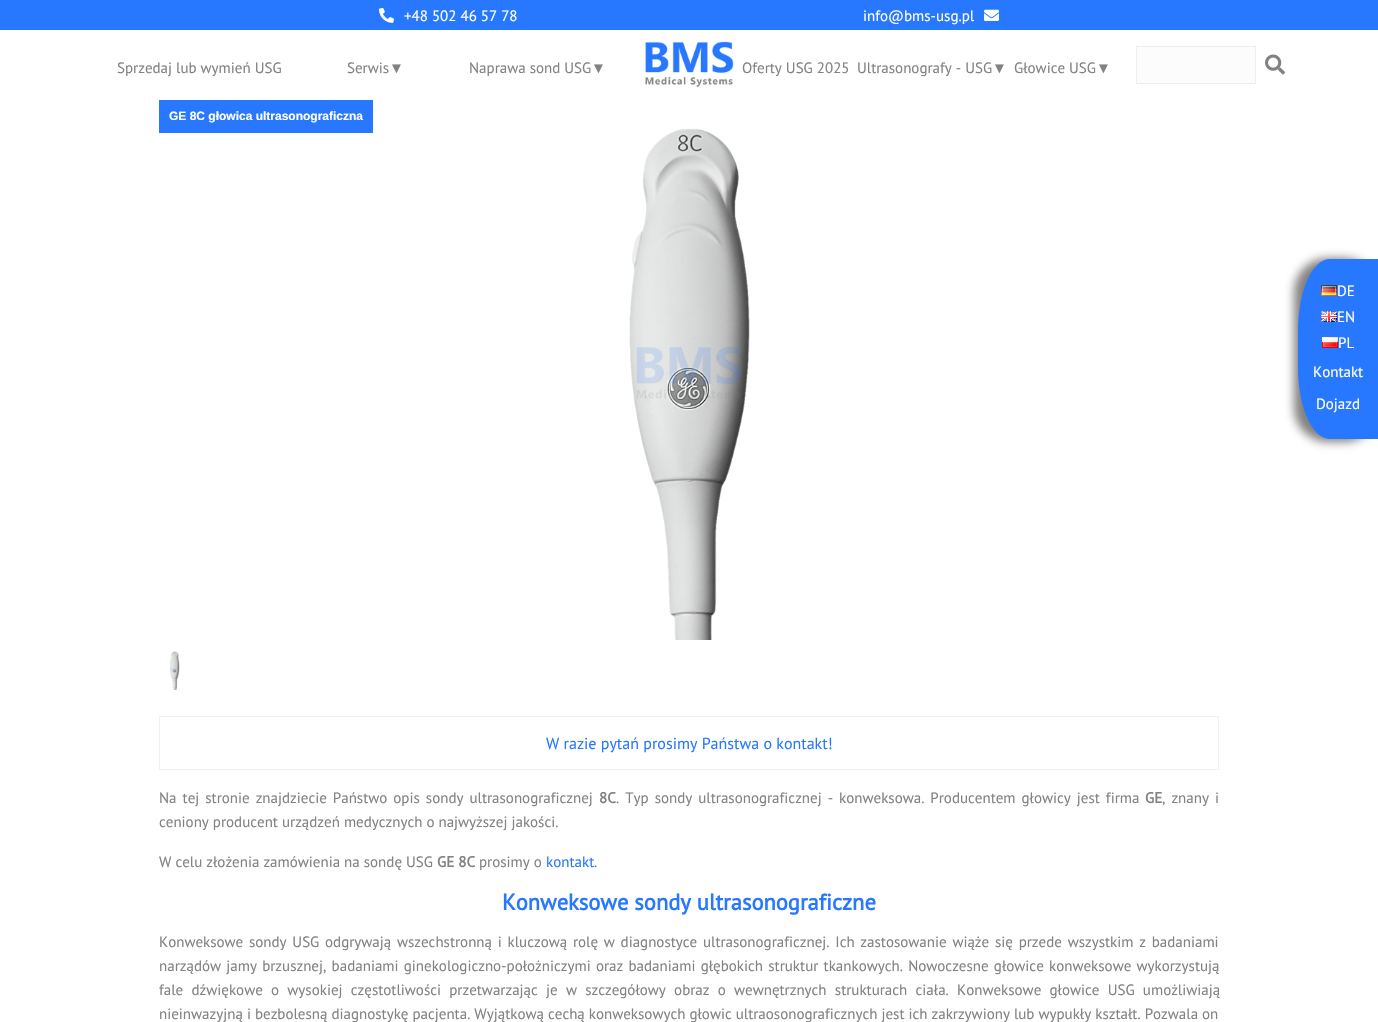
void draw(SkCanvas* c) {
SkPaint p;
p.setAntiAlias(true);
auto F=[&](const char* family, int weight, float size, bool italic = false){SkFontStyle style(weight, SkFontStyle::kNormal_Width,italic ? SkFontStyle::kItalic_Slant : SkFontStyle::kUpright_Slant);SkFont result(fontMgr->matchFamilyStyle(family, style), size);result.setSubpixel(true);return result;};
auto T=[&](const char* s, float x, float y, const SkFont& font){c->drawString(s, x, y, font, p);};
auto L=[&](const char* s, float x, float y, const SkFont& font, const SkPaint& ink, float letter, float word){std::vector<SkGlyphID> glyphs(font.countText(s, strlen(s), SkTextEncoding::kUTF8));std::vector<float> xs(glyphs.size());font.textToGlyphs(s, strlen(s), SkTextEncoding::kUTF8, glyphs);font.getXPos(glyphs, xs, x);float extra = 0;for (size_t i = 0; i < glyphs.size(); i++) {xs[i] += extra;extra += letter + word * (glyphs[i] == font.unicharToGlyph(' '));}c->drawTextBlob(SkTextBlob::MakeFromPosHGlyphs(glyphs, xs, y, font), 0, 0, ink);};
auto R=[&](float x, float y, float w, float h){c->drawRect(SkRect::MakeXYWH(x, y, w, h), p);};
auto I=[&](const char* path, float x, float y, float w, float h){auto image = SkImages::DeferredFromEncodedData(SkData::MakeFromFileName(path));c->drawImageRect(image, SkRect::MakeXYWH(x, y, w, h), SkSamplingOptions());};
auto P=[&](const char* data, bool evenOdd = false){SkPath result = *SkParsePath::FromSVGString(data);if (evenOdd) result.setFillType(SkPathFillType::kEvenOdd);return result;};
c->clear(0xffffffff);
p.setColor(0xff2778ff);
R(0,0,1378,30);
I("1.png",379,7,15,16);
auto f1 = F("PT Sans",400,15);
p.setColor(0xffffffff);
T("+48 502 46 57 78",404,21,f1);
T("info@bms-usg.pl",863,21,f1);
I("2.png",984,9,15,12);
I("3.png",645,41,89,47);
p.setColor(0xff838280);
T("Sprzedaj lub wymień USG",117,73,f1);
T("Serwis",347,73,f1);
auto f2 = F("Liberation Sans",700,15);
T("▼",389,73,f2);
T("Naprawa sond USG",469,73,f1);
T("▼",591,73,f2);
T("Oferty USG 2025",742,73,f1);
T("Ultrasonografy - USG",857,73,f1);
T("▼",992,73,f2);
T("Głowice USG",1014,73,f1);
T("▼",1096,73,f2);
p.setColor(0xfffcfcfc);
c->drawRect(SkRect::MakeXYWH(1136.5,46.5,119,37),p);
p.setStroke(true);
p.setStrokeWidth(1);
p.setColor(0xffeeeeee);
c->drawRect(SkRect::MakeXYWH(1136.5,46.5,119,37),p);
I("4.png",1265,54,20,21);
p.setStroke(false);
p.setColor(0xff838280);
p.setMaskFilter(SkMaskFilter::MakeBlur(kNormal_SkBlurStyle, 5));
c->drawRoundRect(SkRect::MakeXYWH(1294,258,84,184),34,34,p);
p.setMaskFilter(nullptr);
p.setColor(0xff2778ff);
c->drawPath(P("M1330 259h48v180h-48c-18 0-32-32-32-72v-36c0-40 14-72 32-72z"),p);
I("5.png",1321,285,16,11);
p.setColor(0xffffffff);
T("DE",1337,296,f1);
I("6.png",1321,311,16,11);
T("EN",1337,322,f1);
I("7.png",1322,337,16,11);
T("PL",1338,348,f1);
T("Kontakt",1313,377,f1);
T("Dojazd",1316,409,f1);
p.setColor(0xff2778ff);
R(159,100,214,33);
auto f3 = F("Liberation Sans",700,12);
p.setColor(0xffffffff);
T("GE 8C głowica ultrasonograficzna",169,120,f3);
I("8.png",629,128,121,512);
I("9.png",170,651,10,39);
p.setStroke(true);
p.setColor(0xfff1f1f1);
c->drawRect(SkRect::MakeXYWH(159.5,716.5,1059,53),p);
auto f4 = F("PT Sans",400,16);
p.setStroke(false);
p.setColor(0xff2778ff);
T("W razie pytań prosimy Państwa o kontakt!",546,749,f4);
p.setColor(0xff838280);
L("Na tej stronie znajdziecie Państwo opis sondy ultrasonograficznej",159,803,f1,p,0,2);
auto f5 = F("PT Sans",700,15);
T("8C",599,803,f5);
L(". Typ sondy ultrasonograficznej - konweksowa. Producentem głowicy jest firma",616,803,f1,p,0,2);
T("GE",1145,803,f5);
L(", znany i",1162,803,f1,p,0,2);
T("ceniony producent urządzeń medycznych o najwyższej jakości.",159,827,f1);
T("W celu złożenia zamówienia na sondę USG",159,867,f1);
T("GE 8C",437,867,f5);
T("prosimy o",479,867,f1);
p.setColor(0xff2778ff);
T("kontakt",546,867,f1);
p.setColor(0xff838280);
T(".",594,867,f1);
auto f6 = F("PT Sans",700,22.5);
p.setColor(0xff2778ff);
T("Konweksowe sondy ultrasonograficzne",502,910,f6);
p.setColor(0xff838280);
L("Konweksowe sondy USG odgrywają wszechstronną i kluczową rolę w diagnostyce ultrasonograficznej. Ich zastosowanie wiąże się przede wszystkim z badaniami",159,947,f1,p,0,1.75);
L("narządów jamy brzusznej, badaniami ginekologiczno-położniczymi oraz badaniami głębokich struktur tkankowych. Nowoczesne głowice konweksowe wykorzystują",159,971,f1,p,0,1.25);
L("fale dźwiękowe o wysokiej częstotliwości przetwarzając je w szczegółowy obraz o wewnętrznych strukturach ciała. Konweksowe głowice USG umożliwiają",159,995,f1,p,0,4.25);
T("nieinwazyjną i bezbolesną diagnostykę pacjenta. Wyjątkową cechą konweksowych głowic ultraosonograficznych jest ich zakrzywiony lub wypukły kształt. Pozwala on",159,1019,f1);
}
